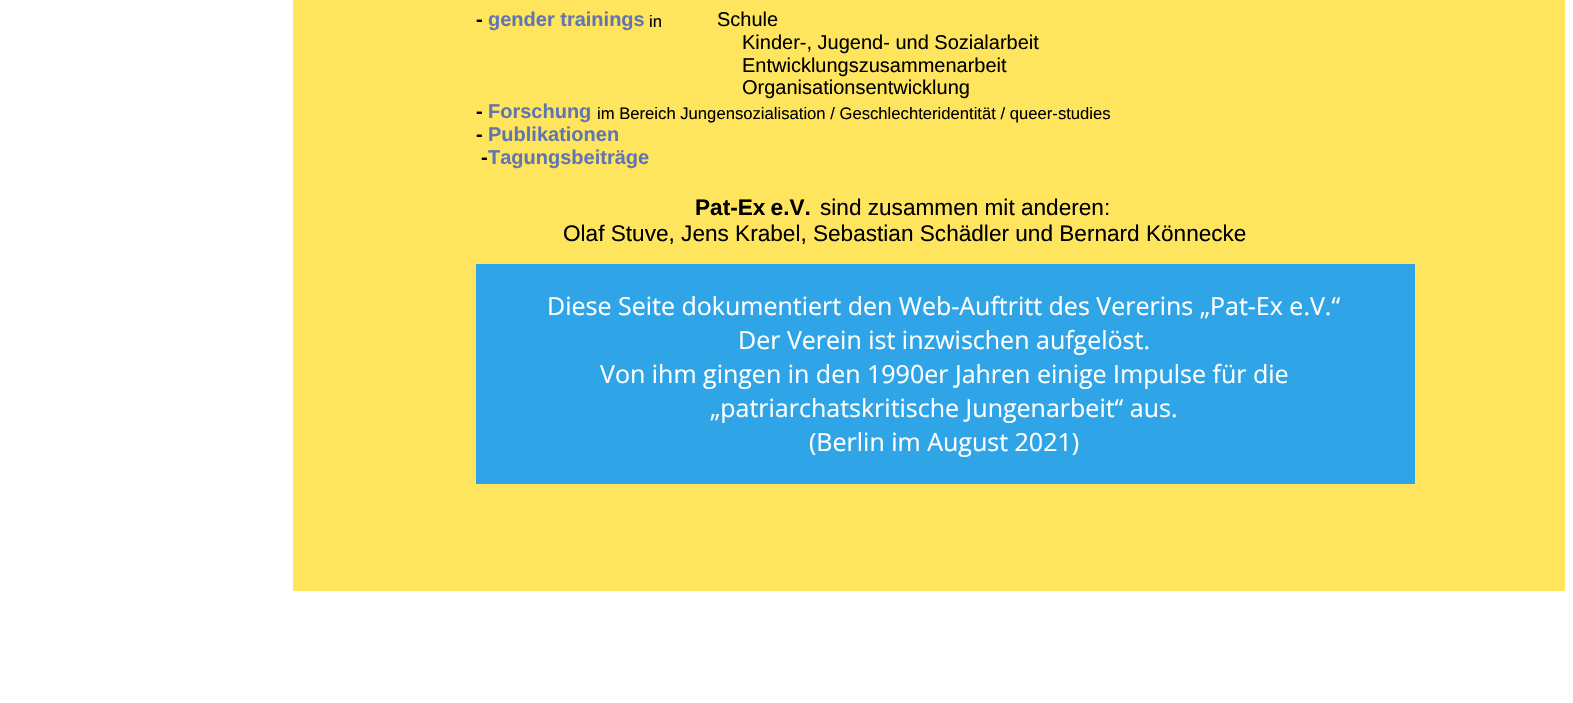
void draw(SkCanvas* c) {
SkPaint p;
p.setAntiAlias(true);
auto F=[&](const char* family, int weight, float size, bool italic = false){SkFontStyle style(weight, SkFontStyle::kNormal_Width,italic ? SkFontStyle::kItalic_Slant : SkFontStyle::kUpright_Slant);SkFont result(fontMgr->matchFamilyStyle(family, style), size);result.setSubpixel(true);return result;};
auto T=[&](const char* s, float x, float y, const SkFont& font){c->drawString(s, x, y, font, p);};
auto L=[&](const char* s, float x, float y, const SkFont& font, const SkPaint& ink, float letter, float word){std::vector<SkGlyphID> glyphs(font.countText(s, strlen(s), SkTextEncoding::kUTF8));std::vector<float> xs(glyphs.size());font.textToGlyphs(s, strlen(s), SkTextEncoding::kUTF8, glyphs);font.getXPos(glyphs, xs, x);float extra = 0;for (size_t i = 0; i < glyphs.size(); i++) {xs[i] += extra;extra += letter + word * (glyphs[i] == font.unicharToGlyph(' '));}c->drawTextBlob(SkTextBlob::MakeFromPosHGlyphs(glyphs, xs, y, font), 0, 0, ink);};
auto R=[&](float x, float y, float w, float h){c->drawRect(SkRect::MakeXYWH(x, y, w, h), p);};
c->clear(0xffffffff);
p.setColor(0xffffe45d);
R(293,0,1272,591);
auto f1 = F("Liberation Sans",700,20);
p.setColor(0xff000000);
T("-",476,26,f1);
p.setColor(0xff6175b0);
T("gender trainings",488,26,f1);
auto f2 = F("Liberation Sans",400,16.65);
p.setColor(0xff000000);
T("in",649,27,f2);
auto f3 = F("Liberation Sans",400,20);
T("Schule",717,26,f3);
T("Kinder-, Jugend- und Sozialarbeit",742,49,f3);
T("Entwicklungszusammenarbeit",742,72,f3);
T("Organisationsentwicklung",742,94,f3);
T("-",476,118,f1);
p.setColor(0xff6175b0);
T("Forschung",488,118,f1);
p.setColor(0xff000000);
T("im Bereich Jungensozialisation / Geschlechteridentität / queer-studies",597,119,f2);
T("-",476,141,f1);
p.setColor(0xff6175b0);
T("Publikationen",488,141,f1);
p.setColor(0xff000000);
T("-",481,164,f1);
p.setColor(0xff6175b0);
T("Tagungsbeiträge",488,164,f1);
auto f4 = F("Liberation Sans",700,22.6);
p.setColor(0xff000000);
L("Pat-Ex e.V.",695,215,f4,p,0,-1);
auto f5 = F("Liberation Sans",400,22.6);
T("sind zusammen mit anderen:",820,215,f5);
T("Olaf Stuve, Jens Krabel, Sebastian Schädler und Bernard Könnecke",563,241,f5);
p.setColor(0xff2fa4e7);
R(476,264,939,220);
auto f6 = F("Open Sans",400,25);
p.setColor(0xffffffff);
T("Diese Seite dokumentiert den Web-Auftritt des Vererins „Pat-Ex e.V.“",547,315,f6);
T("Der Verein ist inzwischen aufgelöst.",738,349,f6);
T("Von ihm gingen in den 1990er Jahren einige Impulse für die",600,383,f6);
T("„patriarchatskritische Jungenarbeit“ aus.",710,417,f6);
T("(Berlin im August 2021)",809,451,f6);
}
